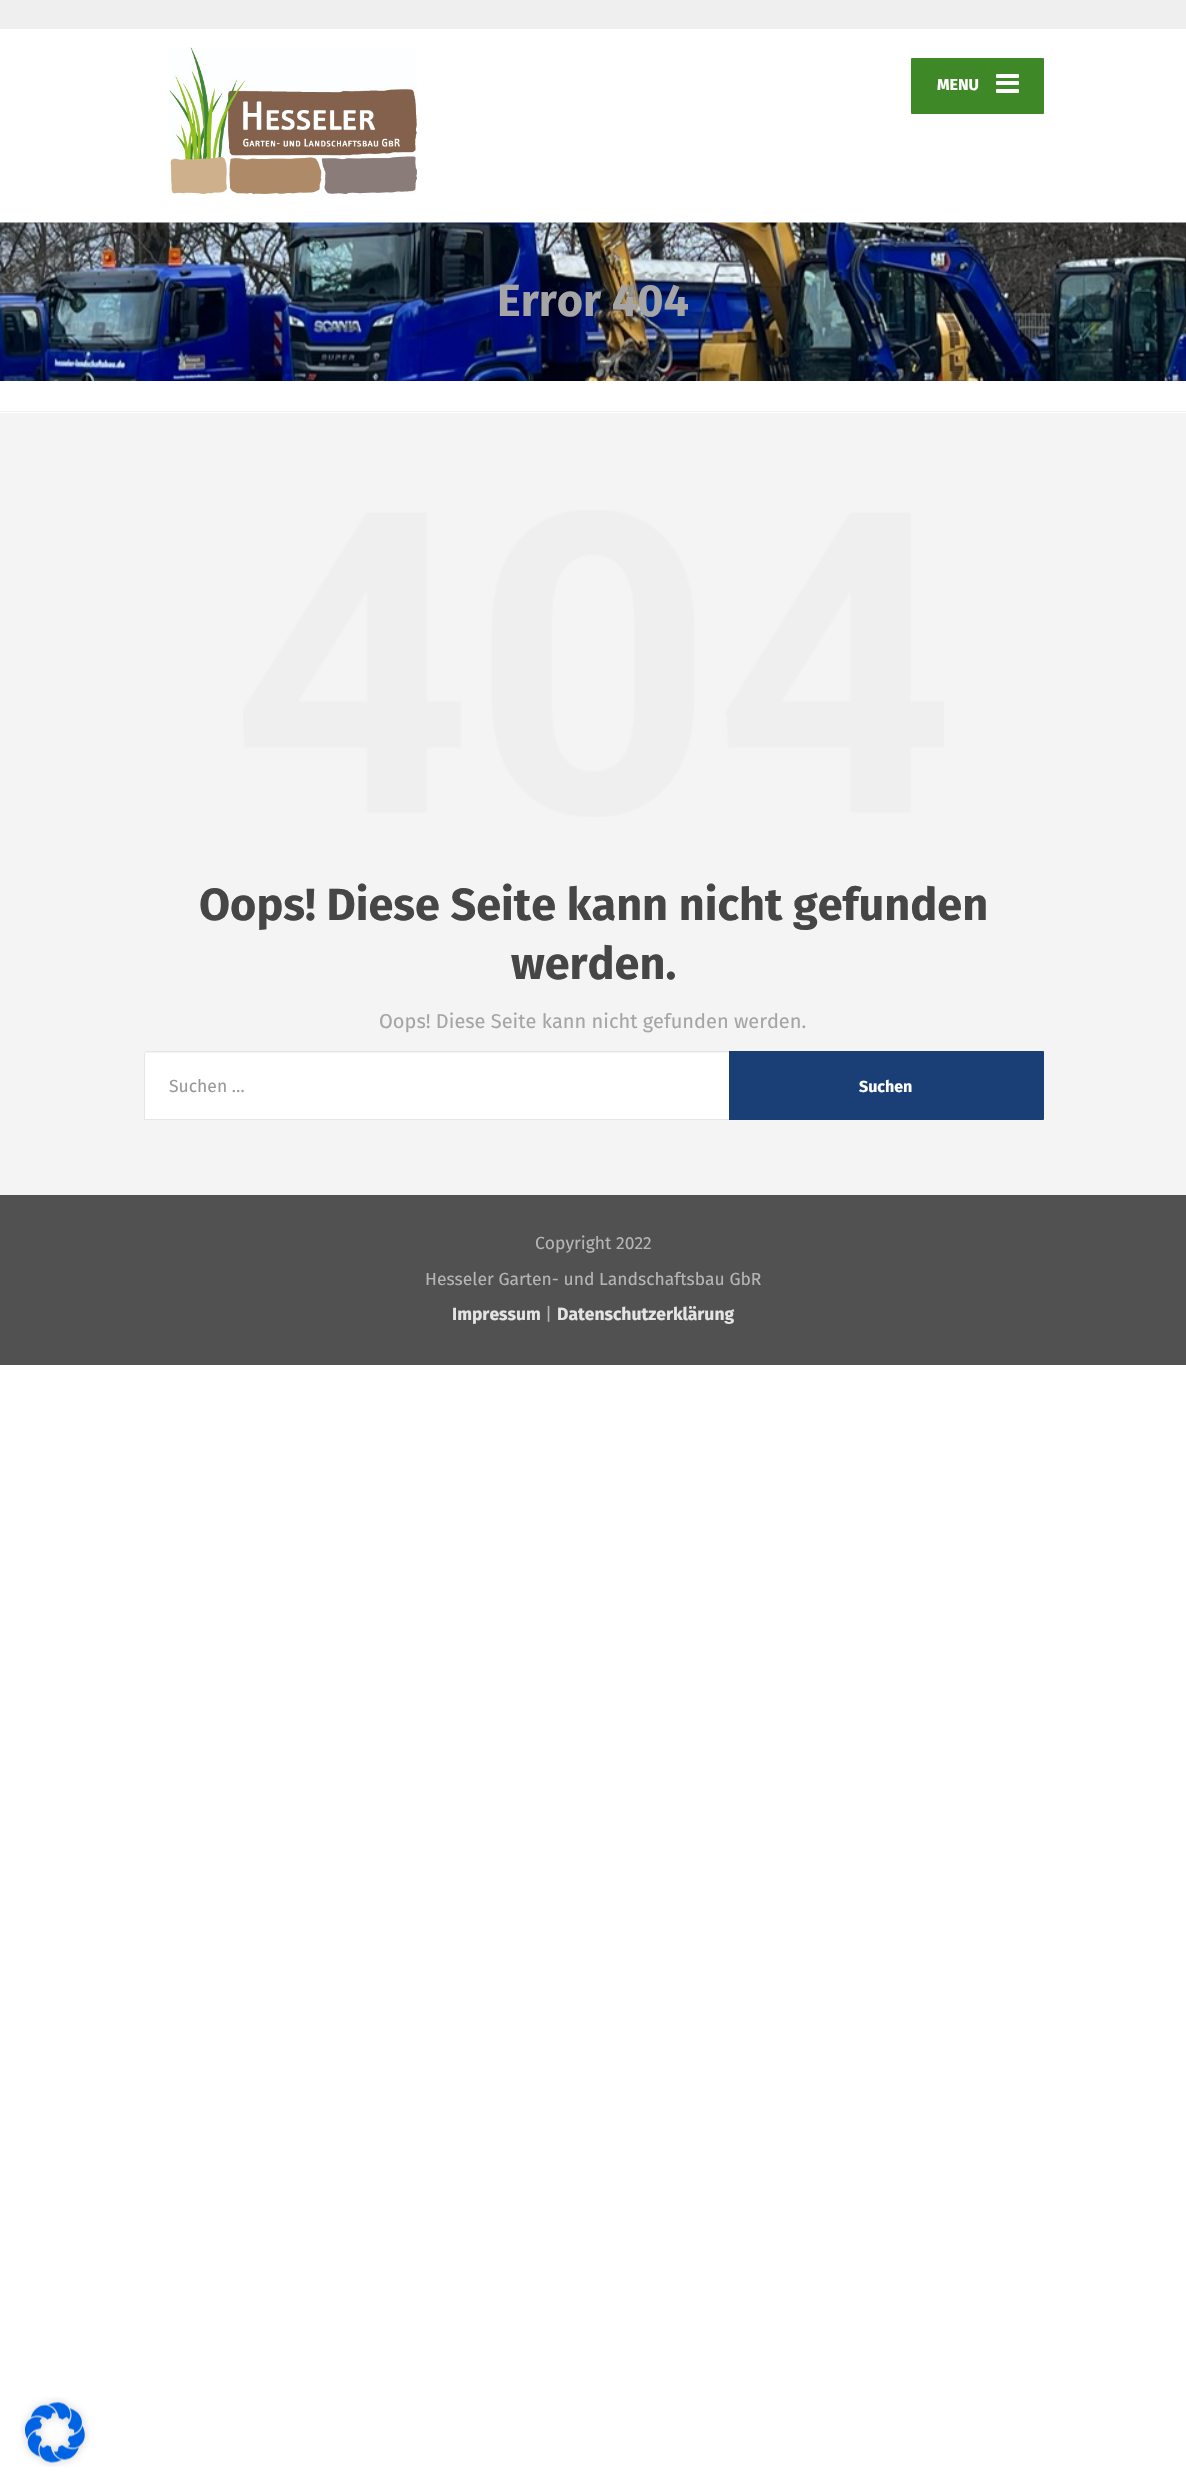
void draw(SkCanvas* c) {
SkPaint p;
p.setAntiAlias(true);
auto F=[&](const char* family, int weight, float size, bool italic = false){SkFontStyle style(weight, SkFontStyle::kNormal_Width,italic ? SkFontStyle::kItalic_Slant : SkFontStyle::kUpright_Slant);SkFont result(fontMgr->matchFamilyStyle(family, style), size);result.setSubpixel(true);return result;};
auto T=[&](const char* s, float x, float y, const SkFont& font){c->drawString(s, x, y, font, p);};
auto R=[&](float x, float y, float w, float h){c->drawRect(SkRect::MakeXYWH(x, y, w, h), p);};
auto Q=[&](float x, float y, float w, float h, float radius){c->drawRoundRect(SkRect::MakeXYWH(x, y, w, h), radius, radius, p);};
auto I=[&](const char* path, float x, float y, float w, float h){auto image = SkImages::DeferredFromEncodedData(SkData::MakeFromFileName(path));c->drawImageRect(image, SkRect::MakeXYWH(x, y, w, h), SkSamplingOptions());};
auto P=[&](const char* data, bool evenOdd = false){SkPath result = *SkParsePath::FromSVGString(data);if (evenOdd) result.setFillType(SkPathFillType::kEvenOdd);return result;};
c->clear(0xffffffff);
p.setColor(0xfff4f4f4);
R(0,413,1186,782);
p.setColor(0xffefefef);
R(0,0,1186,29);
I("1.png",169,47,248,147);
p.setColor(0xff3f8827);
Q(911,58,133,56,1);
auto f1 = F("Fira Sans",700,16);
p.setColor(0xffffffff);
T("MENU",937,90,f1);
Q(996,74,23,4,1);
Q(996,81,23,4,1);
Q(996,89,23,4,1);
I("2.png",0,222,1186,159);
auto f2 = F("Fira Sans",700,45);
p.setColor(0xffa5a5a5);
T("Error 404",497,316,f2);
p.setColor(0xfff0f0f0);
R(0,411,1186,1);
I("3.png",243,510,701,307);
p.setColor(0xff464646);
T("Oops! Diese Seite kann nicht gefunden",199,920,f2);
T("werden.",511,979,f2);
auto f3 = F("Fira Sans",400,20);
p.setColor(0xffa5a5a5);
T("Oops! Diese Seite kann nicht gefunden werden.",379,1028,f3);
p.setColor(0xffffffff);
R(145,1053,584,66);
p.setColor(0xffe6e6e6);
R(145,1051,584,1);
R(145,1119,584,1);
R(144,1053,1,67);
auto f4 = F("Fira Sans",400,17.5);
p.setColor(0xff999999);
T("Suchen …",169,1092,f4);
p.setColor(0xff193f76);
c->drawPath(P("M729 1051h314c.5 0 1 .5 1 1v67c0 .5-.5 1-1 1h-314z"),p);
p.setColor(0xffffffff);
T("Suchen",859,1092,f1);
p.setColor(0xff515151);
R(0,1195,1186,170);
p.setColor(0xffb5b5b5);
T("Copyright 2022",535,1249,f4);
T("Hesseler Garten- und Landschaftsbau GbR",425,1285,f4);
auto f5 = F("Fira Sans",700,17.5);
p.setColor(0xffe4e4e4);
T("Impressum",452,1320,f5);
p.setColor(0xffb5b5b5);
T("|",545,1320,f4);
p.setColor(0xffe4e4e4);
T("Datenschutzerklärung",557,1320,f5);
I("4.png",20,2397,70,70);
}
